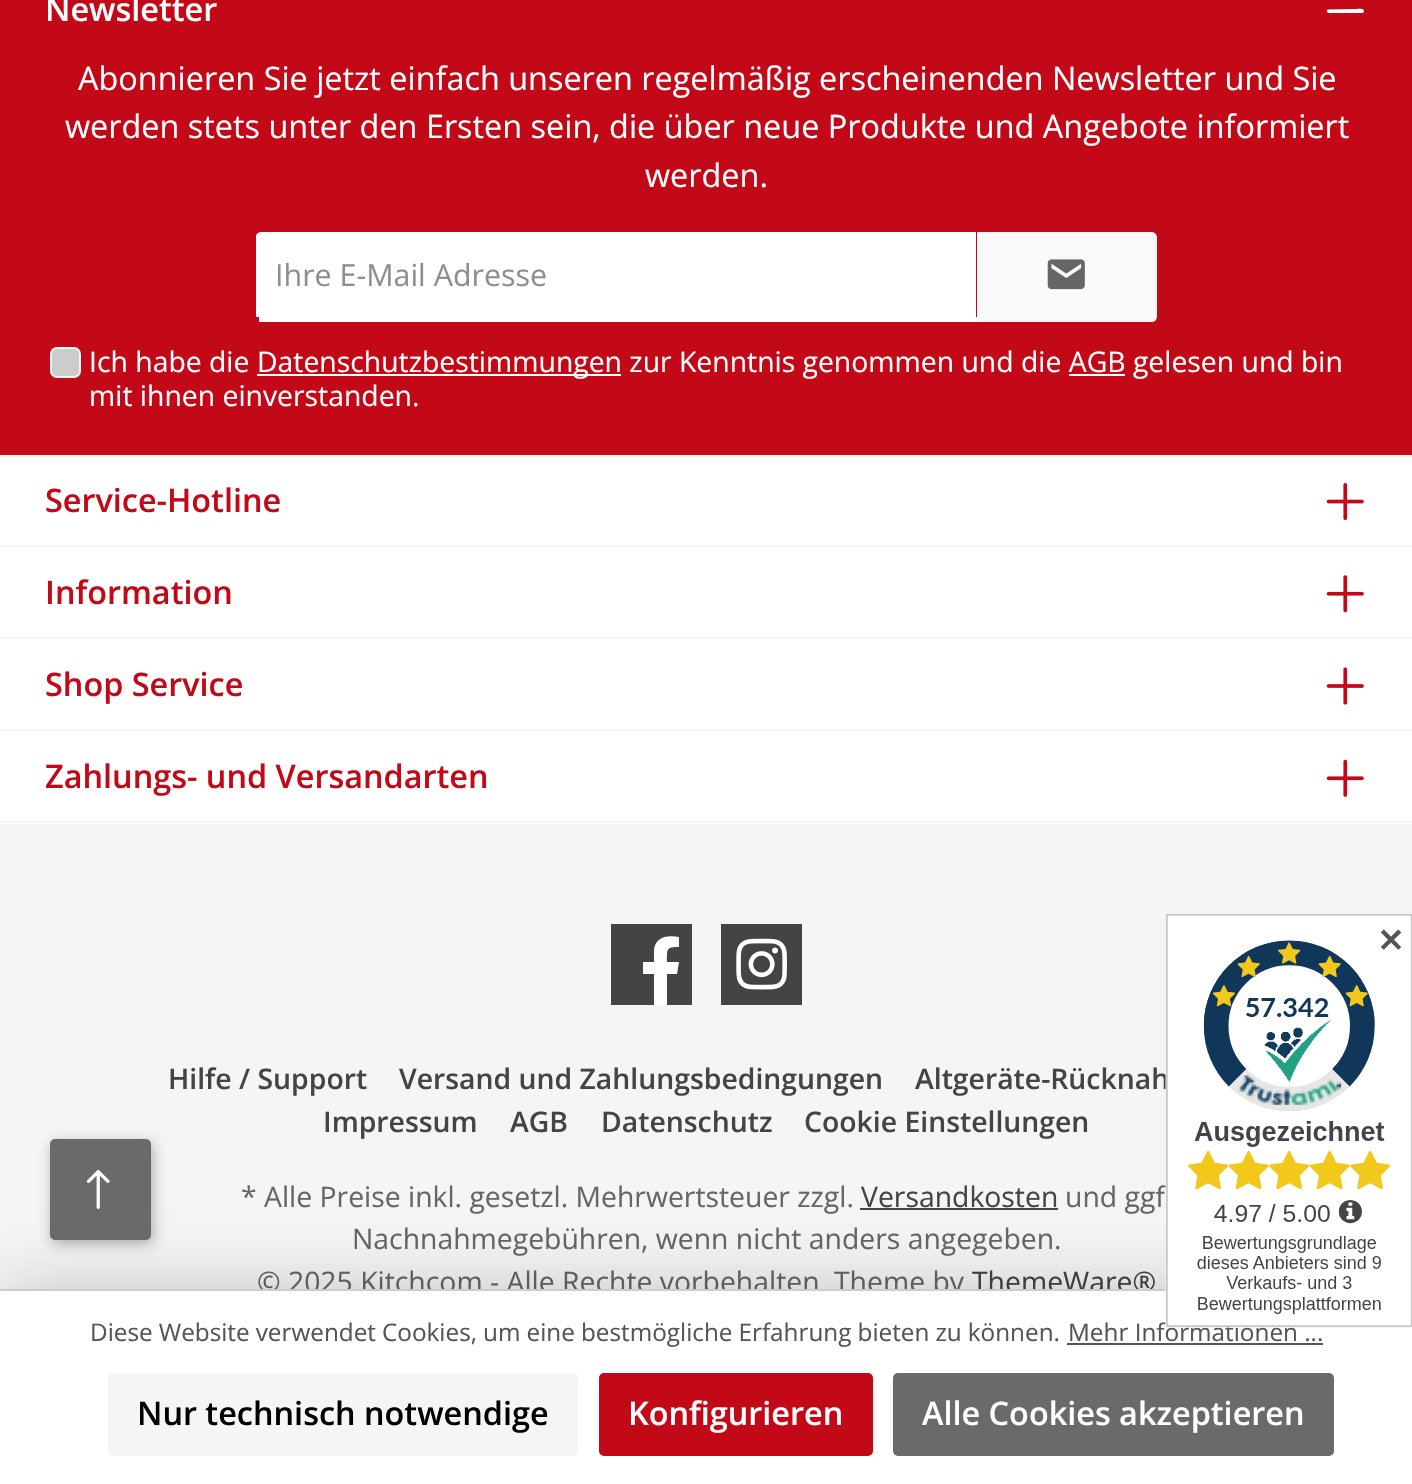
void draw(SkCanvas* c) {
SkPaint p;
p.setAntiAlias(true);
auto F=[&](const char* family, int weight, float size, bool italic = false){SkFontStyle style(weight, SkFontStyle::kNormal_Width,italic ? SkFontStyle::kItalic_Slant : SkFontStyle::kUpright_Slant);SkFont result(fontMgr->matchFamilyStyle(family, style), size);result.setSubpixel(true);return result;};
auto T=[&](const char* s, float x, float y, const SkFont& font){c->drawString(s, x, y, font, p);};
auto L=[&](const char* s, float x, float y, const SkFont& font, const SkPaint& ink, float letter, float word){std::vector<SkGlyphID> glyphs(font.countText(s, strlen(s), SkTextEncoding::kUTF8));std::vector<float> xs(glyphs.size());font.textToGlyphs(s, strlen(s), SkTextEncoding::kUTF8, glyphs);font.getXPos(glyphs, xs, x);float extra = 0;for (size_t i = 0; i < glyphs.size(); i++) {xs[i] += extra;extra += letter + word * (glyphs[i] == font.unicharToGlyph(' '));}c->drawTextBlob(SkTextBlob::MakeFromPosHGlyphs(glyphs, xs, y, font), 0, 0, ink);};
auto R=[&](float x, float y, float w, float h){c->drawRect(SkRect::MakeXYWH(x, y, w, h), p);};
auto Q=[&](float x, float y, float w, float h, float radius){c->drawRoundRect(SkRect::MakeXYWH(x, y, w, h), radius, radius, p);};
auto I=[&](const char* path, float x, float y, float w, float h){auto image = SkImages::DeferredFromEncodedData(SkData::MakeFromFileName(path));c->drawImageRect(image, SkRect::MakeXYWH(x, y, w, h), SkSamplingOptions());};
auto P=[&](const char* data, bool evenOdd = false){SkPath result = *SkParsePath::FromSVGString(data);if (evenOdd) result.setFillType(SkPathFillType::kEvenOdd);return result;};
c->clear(0xffffffff);
p.setColor(0xffc30917);
R(0,0,1412,455);
p.setColor(0xfff5f5f5);
R(0,455,1412,2);
auto f1 = F("Open Sans",600,32.4);
p.setColor(0xffffffff);
T("Newsletter",45,21,f1);
c->drawPath(P("M1328.5 13h34l1-.5c0-.5 .5-1 .5-2c-1-2.5-7-1.5-7.5-1.5l-28.5 .5c-1.5 .5-1.5 2-.5 3z",true),p);
auto f2 = F("Open Sans",400,32.4);
T("Abonnieren Sie jetzt einfach unseren regelmäßig erscheinenden Newsletter und Sie",78,90,f2);
T("werden stets unter den Ersten sein, die über neue Produkte und Angebote informiert",65,138,f2);
T("werden.",645,187,f2);
c->drawPath(P("M261 232h715v85h-720v-81c0-2 3-4 5-4z"),p);
R(259,317,718,5);
auto f3 = F("Open Sans",400,30.4);
p.setColor(0xff8e8e8e);
T("Ihre E-Mail Adresse",275,286,f3);
p.setColor(0xfffafafa);
c->drawPath(P("M978 233h174c2 0 4 2 4 4v80c0 2-2 4-4 4h-174z"),p);
p.setStroke(true);
p.setStrokeWidth(2);
p.setColor(0xfff5f5f5);
c->drawPath(P("M978 233h174c2 0 4 2 4 4v80c0 2-2 4-4 4h-174z"),p);
I("1.png",1047,259,38,31);
p.setStroke(false);
p.setColor(0xffcccccc);
c->drawRoundRect(SkRect::MakeXYWH(51,348,29,29),6,6,p);
p.setStroke(true);
p.setColor(0xfff5f5f5);
c->drawRoundRect(SkRect::MakeXYWH(51,348,29,29),6,6,p);
auto f4 = F("Open Sans",400,28.35);
p.setStroke(false);
p.setColor(0xffffffff);
T("Ich habe die",89,372,f4);
R(257,374,364,2);
T("Datenschutzbestimmungen zur Kenntnis genommen und die AGB gelesen und bin",257,372,f4);
R(1069,374,56,2);
T("mit ihnen einverstanden.",89,406,f4);
p.setColor(0xfff5f5f5);
R(0,545,1412,2);
p.setColor(0xffc30917);
T("Service-Hotline",45,512,f1);
I("2.png",1326,483,38,38);
p.setColor(0xfff5f5f5);
R(0,637,1412,2);
p.setColor(0xffc30917);
T("Information",45,604,f1);
I("3.png",1326,575,38,38);
p.setColor(0xfff5f5f5);
R(0,729,1412,2);
p.setColor(0xffc30917);
T("Shop Service",45,696,f1);
I("4.png",1326,667,38,38);
p.setColor(0xfff5f5f5);
R(0,821,1412,2);
p.setColor(0xffc30917);
T("Zahlungs- und Versandarten",45,788,f1);
I("5.png",1326,759,38,38);
p.setColor(0xfff5f5f5);
R(0,824,1412,465);
p.setColor(0xff444444);
R(611,924,81,81);
p.setColor(0xffffffff);
c->drawPath(P("M677 974l2-12h-12c0-13-1-15 12-15v-10c-10-2-23-1-25 12v13h-11v12h11v31h13v-31z"),p);
I("6.png",721,924,81,81);
auto f5 = F("Open Sans",600,28.35);
p.setColor(0xff444444);
T("Hilfe / Support",168,1089,f5);
T("Versand und Zahlungsbedingungen",399,1089,f5);
T("Altgeräte-Rücknah",915,1089,f5);
T("Impressum",323,1132,f5);
T("AGB",510,1132,f5);
T("Datenschutz",601,1132,f5);
T("Cookie Einstellungen",804,1132,f5);
p.setColor(0xff666666);
T("* Alle Preise inkl. gesetzl. Mehrwertsteuer zzgl.",241,1207,f4);
p.setColor(0xff444444);
T("Versandkosten",861,1207,f4);
R(860,1208,198,2);
p.setColor(0xff666666);
T("und ggf",1065,1207,f4);
T("Nachnahmegebühren, wenn nicht anders angegeben.",352,1249,f4);
T("© 2025 Kitchcom - Alle Rechte vorbehalten",257,1292,f4);
T("Theme by",834,1292,f4);
p.setColor(0xff444444);
T("ThemeWare®",972,1292,f4);
p.setColor(0x4d000000);
p.setMaskFilter(SkMaskFilter::MakeBlur(kNormal_SkBlurStyle, 7));
c->drawRoundRect(SkRect::MakeXYWH(52,1143,101,101),5,5,p);
p.setMaskFilter(nullptr);
p.setColor(0xff6a6a6a);
c->drawRoundRect(SkRect::MakeXYWH(51,1140,99,99),4,4,p);
p.setStroke(true);
c->drawRoundRect(SkRect::MakeXYWH(51,1140,99,99),4,4,p);
I("8.png",86,1170,24,39);
p.setStroke(false);
p.setColor(0x33000000);
p.setMaskFilter(SkMaskFilter::MakeBlur(kNormal_SkBlurStyle, 34));
c->drawRect(SkRect::MakeXYWH(0,1289,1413,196),p);
p.setMaskFilter(nullptr);
p.setColor(0xffffffff);
R(0,1291,1412,193);
p.setColor(0xffcccccc);
R(0,1289,1166,2);
auto f6 = F("Open Sans",400,24.3);
p.setColor(0xff555555);
T("Mehr Informationen ...",1068,1341,f6);
I("7.png",1165,914,247,414);
auto f7 = F("DejaVu Sans",700,32.4);
T("✕",1377,952,f7);
L("Diese Website verwendet Cookies, um eine bestmögliche Erfahrung bieten zu können.",90,1341,f6,p,0,-.25);
R(1067,1343,256,2);
p.setColor(0xfff5f5f5);
Q(108,1373,470,83,5);
p.setColor(0xff000000);
T("Nur technisch notwendige",137,1425,f1);
p.setColor(0xffc30917);
c->drawRoundRect(SkRect::MakeXYWH(600,1374,272,81),4,4,p);
p.setStroke(true);
c->drawRoundRect(SkRect::MakeXYWH(600,1374,272,81),4,4,p);
p.setStroke(false);
p.setColor(0xffffffff);
T("Konfigurieren",628,1425,f1);
p.setColor(0xff6a6a6a);
c->drawRoundRect(SkRect::MakeXYWH(894,1374,439,81),4,4,p);
p.setStroke(true);
c->drawRoundRect(SkRect::MakeXYWH(894,1374,439,81),4,4,p);
p.setStroke(false);
p.setColor(0xffffffff);
T("Alle Cookies akzeptieren",922,1425,f1);
}
